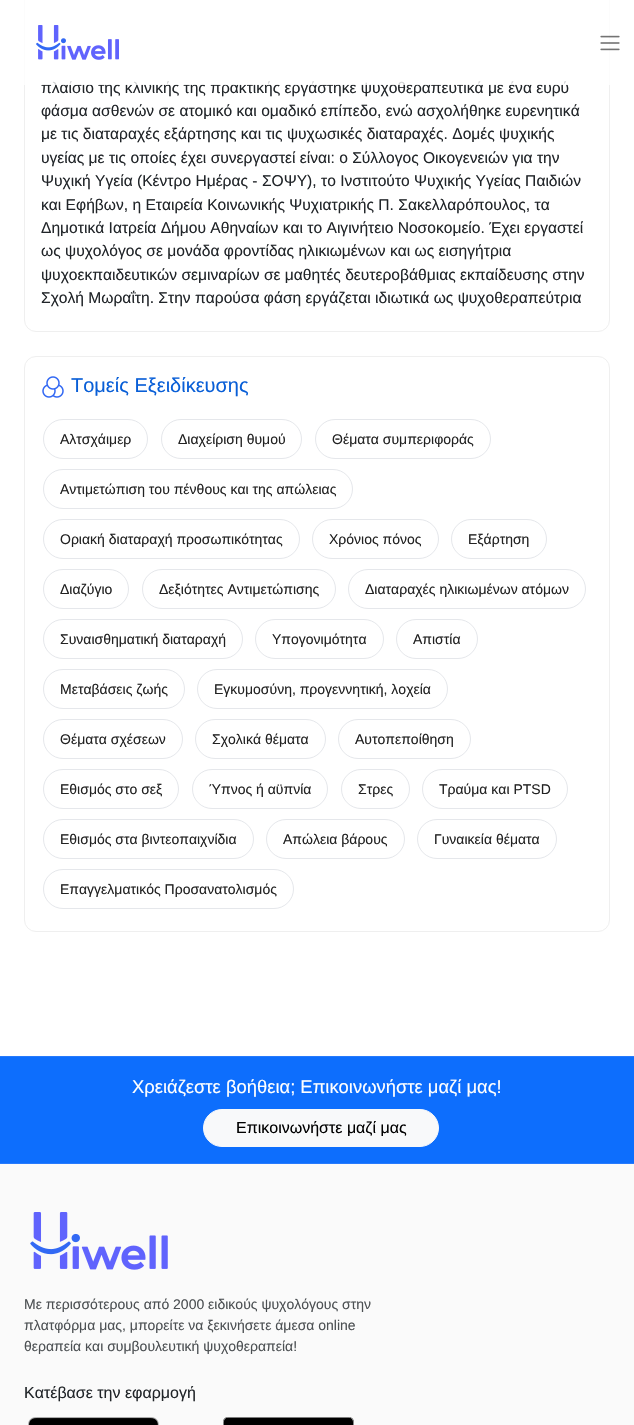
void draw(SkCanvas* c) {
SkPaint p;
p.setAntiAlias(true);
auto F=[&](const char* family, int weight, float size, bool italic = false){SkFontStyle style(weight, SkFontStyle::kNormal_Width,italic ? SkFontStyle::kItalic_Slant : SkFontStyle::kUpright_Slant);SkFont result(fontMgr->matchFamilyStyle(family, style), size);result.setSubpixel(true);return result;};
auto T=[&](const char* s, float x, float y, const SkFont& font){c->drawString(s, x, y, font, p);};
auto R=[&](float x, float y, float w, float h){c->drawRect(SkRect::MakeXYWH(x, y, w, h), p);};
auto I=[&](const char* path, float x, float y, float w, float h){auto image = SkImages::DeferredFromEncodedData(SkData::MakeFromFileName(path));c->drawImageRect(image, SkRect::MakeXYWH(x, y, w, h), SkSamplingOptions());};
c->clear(0xffffffff);
p.setStroke(true);
p.setStrokeWidth(1);
p.setColor(0xffefefef);
c->drawRoundRect(SkRect::MakeXYWH(24.5,-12.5,585,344),11.5,11.5,p);
auto f1 = F("Liberation Sans",400,15.6);
p.setStroke(false);
p.setColor(0xff212529);
T("πλαίσιο της κλινικής της πρακτικής εργάστηκε ψυχοθεραπευτικά με ένα ευρύ",41,93,f1);
p.setColor(0xccffffff);
R(24,0,586,85);
I("1.png",36,25,83,35);
I("2.png",600,35,20,16);
p.setColor(0xff212529);
T("φάσμα ασθενών σε ατομικό και ομαδικό επίπεδο, ενώ ασχολήθηκε ευρενητικά",41,116,f1);
T("με τις διαταραχές εξάρτησης και τις ψυχωσικές διαταραχές. Δομές ψυχικής",41,139,f1);
T("υγείας με τις οποίες έχει συνεργαστεί είναι: ο Σύλλογος Οικογενειών για την",41,163,f1);
T("Ψυχική Υγεία (Κέντρο Ημέρας - ΣΟΨΥ), το Ινστιτούτο Ψυχικής Υγείας Παιδιών",41,186,f1);
T("και Εφήβων, η Εταιρεία Κοινωνικής Ψυχιατρικής Π. Σακελλαρόπουλος, τα",41,210,f1);
T("Δημοτικά Ιατρεία Δήμου Αθηναίων και το Αιγινήτειο Νοσοκομείο. Έχει εργαστεί",41,233,f1);
T("ως ψυχολόγος σε μονάδα φροντίδας ηλικιωμένων και ως εισηγήτρια",41,256,f1);
T("ψυχοεκπαιδευτικών σεμιναρίων σε μαθητές δευτεροβάθμιας εκπαίδευσης στην",41,280,f1);
T("Σχολή Μωραΐτη. Στην παρούσα φάση εργάζεται ιδιωτικά ως ψυχοθεραπεύτρια",41,303,f1);
p.setStroke(true);
p.setColor(0xffefefef);
c->drawRoundRect(SkRect::MakeXYWH(24.5,356.5,585,575),11.5,11.5,p);
I("3.png",42,376,22,22);
auto f2 = F("Liberation Sans",400,20);
p.setStroke(false);
p.setColor(0xff085ed7);
T("Τομείς Εξειδίκευσης",71,392,f2);
p.setStroke(true);
p.setColor(0xffe5e7eb);
c->drawRoundRect(SkRect::MakeXYWH(43.5,419.5,104,39),19.5,19.5,p);
auto f3 = F("Liberation Sans",400,14);
p.setStroke(false);
p.setColor(0xff222222);
T("Αλτσχάιμερ",60,444,f3);
p.setStroke(true);
p.setColor(0xffe5e7eb);
c->drawRoundRect(SkRect::MakeXYWH(161.5,419.5,140,39),19.5,19.5,p);
p.setStroke(false);
p.setColor(0xff222222);
T("Διαχείριση θυμού",178,444,f3);
p.setStroke(true);
p.setColor(0xffe5e7eb);
c->drawRoundRect(SkRect::MakeXYWH(315.5,419.5,175,39),19.5,19.5,p);
p.setStroke(false);
p.setColor(0xff222222);
T("Θέματα συμπεριφοράς",332,444,f3);
p.setStroke(true);
p.setColor(0xffe5e7eb);
c->drawRoundRect(SkRect::MakeXYWH(43.5,469.5,309,39),19.5,19.5,p);
p.setStroke(false);
p.setColor(0xff222222);
T("Αντιμετώπιση του πένθους και της απώλειας",60,494,f3);
p.setStroke(true);
p.setColor(0xffe5e7eb);
c->drawRoundRect(SkRect::MakeXYWH(43.5,519.5,256,39),19.5,19.5,p);
p.setStroke(false);
p.setColor(0xff222222);
T("Οριακή διαταραχή προσωπικότητας",60,544,f3);
p.setStroke(true);
p.setColor(0xffe5e7eb);
c->drawRoundRect(SkRect::MakeXYWH(312.5,519.5,126,39),19.5,19.5,p);
p.setStroke(false);
p.setColor(0xff222222);
T("Χρόνιος πόνος",329,544,f3);
p.setStroke(true);
p.setColor(0xffe5e7eb);
c->drawRoundRect(SkRect::MakeXYWH(451.5,519.5,95,39),19.5,19.5,p);
p.setStroke(false);
p.setColor(0xff222222);
T("Εξάρτηση",468,544,f3);
p.setStroke(true);
p.setColor(0xffe5e7eb);
c->drawRoundRect(SkRect::MakeXYWH(43.5,569.5,85,39),19.5,19.5,p);
p.setStroke(false);
p.setColor(0xff222222);
T("Διαζύγιο",60,594,f3);
p.setStroke(true);
p.setColor(0xffe5e7eb);
c->drawRoundRect(SkRect::MakeXYWH(142.5,569.5,193,39),19.5,19.5,p);
p.setStroke(false);
p.setColor(0xff222222);
T("Δεξιότητες Αντιμετώπισης",159,594,f3);
p.setStroke(true);
p.setColor(0xffe5e7eb);
c->drawRoundRect(SkRect::MakeXYWH(348.5,569.5,237,39),19.5,19.5,p);
p.setStroke(false);
p.setColor(0xff222222);
T("Διαταραχές ηλικιωμένων ατόμων",365,594,f3);
p.setStroke(true);
p.setColor(0xffe5e7eb);
c->drawRoundRect(SkRect::MakeXYWH(43.5,619.5,199,39),19.5,19.5,p);
p.setStroke(false);
p.setColor(0xff222222);
T("Συναισθηματική διαταραχή",60,644,f3);
p.setStroke(true);
p.setColor(0xffe5e7eb);
c->drawRoundRect(SkRect::MakeXYWH(255.5,619.5,128,39),19.5,19.5,p);
p.setStroke(false);
p.setColor(0xff222222);
T("Υπογονιμότητα",272,644,f3);
p.setStroke(true);
p.setColor(0xffe5e7eb);
c->drawRoundRect(SkRect::MakeXYWH(396.5,619.5,81,39),19.5,19.5,p);
p.setStroke(false);
p.setColor(0xff222222);
T("Απιστία",413,644,f3);
p.setStroke(true);
p.setColor(0xffe5e7eb);
c->drawRoundRect(SkRect::MakeXYWH(43.5,669.5,141,39),19.5,19.5,p);
p.setStroke(false);
p.setColor(0xff222222);
T("Μεταβάσεις ζωής",60,694,f3);
p.setStroke(true);
p.setColor(0xffe5e7eb);
c->drawRoundRect(SkRect::MakeXYWH(197.5,669.5,250,39),19.5,19.5,p);
p.setStroke(false);
p.setColor(0xff222222);
T("Εγκυμοσύνη, προγεννητική, λοχεία",214,694,f3);
p.setStroke(true);
p.setColor(0xffe5e7eb);
c->drawRoundRect(SkRect::MakeXYWH(43.5,719.5,139,39),19.5,19.5,p);
p.setStroke(false);
p.setColor(0xff222222);
T("Θέματα σχέσεων",60,744,f3);
p.setStroke(true);
p.setColor(0xffe5e7eb);
c->drawRoundRect(SkRect::MakeXYWH(195.5,719.5,130,39),19.5,19.5,p);
p.setStroke(false);
p.setColor(0xff222222);
T("Σχολικά θέματα",212,744,f3);
p.setStroke(true);
p.setColor(0xffe5e7eb);
c->drawRoundRect(SkRect::MakeXYWH(338.5,719.5,132,39),19.5,19.5,p);
p.setStroke(false);
p.setColor(0xff222222);
T("Αυτοπεποίθηση",355,744,f3);
p.setStroke(true);
p.setColor(0xffe5e7eb);
c->drawRoundRect(SkRect::MakeXYWH(43.5,769.5,135,39),19.5,19.5,p);
p.setStroke(false);
p.setColor(0xff222222);
T("Εθισμός στο σεξ",60,794,f3);
p.setStroke(true);
p.setColor(0xffe5e7eb);
c->drawRoundRect(SkRect::MakeXYWH(192.5,769.5,135,39),19.5,19.5,p);
p.setStroke(false);
p.setColor(0xff222222);
T("Ύπνος ή αϋπνία",209,794,f3);
p.setStroke(true);
p.setColor(0xffe5e7eb);
c->drawRoundRect(SkRect::MakeXYWH(341.5,769.5,68,39),19.5,19.5,p);
p.setStroke(false);
p.setColor(0xff222222);
T("Στρες",358,794,f3);
p.setStroke(true);
p.setColor(0xffe5e7eb);
c->drawRoundRect(SkRect::MakeXYWH(422.5,769.5,145,39),19.5,19.5,p);
p.setStroke(false);
p.setColor(0xff222222);
T("Τραύμα και PTSD",439,794,f3);
p.setStroke(true);
p.setColor(0xffe5e7eb);
c->drawRoundRect(SkRect::MakeXYWH(43.5,819.5,210,39),19.5,19.5,p);
p.setStroke(false);
p.setColor(0xff222222);
T("Εθισμός στα βιντεοπαιχνίδια",60,844,f3);
p.setStroke(true);
p.setColor(0xffe5e7eb);
c->drawRoundRect(SkRect::MakeXYWH(266.5,819.5,138,39),19.5,19.5,p);
p.setStroke(false);
p.setColor(0xff222222);
T("Απώλεια βάρους",283,844,f3);
p.setStroke(true);
p.setColor(0xffe5e7eb);
c->drawRoundRect(SkRect::MakeXYWH(417.5,819.5,139,39),19.5,19.5,p);
p.setStroke(false);
p.setColor(0xff222222);
T("Γυναικεία θέματα",434,844,f3);
p.setStroke(true);
p.setColor(0xffe5e7eb);
c->drawRoundRect(SkRect::MakeXYWH(43.5,869.5,250,39),19.5,19.5,p);
p.setStroke(false);
p.setColor(0xff222222);
T("Επαγγελματικός Προσανατολισμός",60,894,f3);
p.setColor(0xfffafafa);
R(0,1164,634,261);
p.setColor(0xff0d6efd);
R(0,1057,634,106);
p.setColor(0xff277afc);
R(0,1056,634,1);
R(0,1163,634,1);
auto f4 = F("Liberation Sans",400,18.4);
p.setColor(0xffffffff);
T("Χρειάζεστε βοήθεια; Επικοινωνήστε μαζί μας!",132,1093,f4);
p.setColor(0xfff8f9fa);
c->drawRoundRect(SkRect::MakeXYWH(203.5,1109.5,235,37),18.5,18.5,p);
p.setStroke(true);
c->drawRoundRect(SkRect::MakeXYWH(203.5,1109.5,235,37),18.5,18.5,p);
auto f5 = F("Liberation Sans",400,16);
p.setStroke(false);
p.setColor(0xff000000);
T("Επικοινωνήστε μαζί μας",236,1133,f5);
I("4.png",30,1212,138,58);
p.setColor(0xff4c5053);
T("Με περισσότερους από 2000 ειδικούς ψυχολόγους στην",24,1309,f3);
T("πλατφόρμα μας, μπορείτε να ξεκινήσετε άμεσα online",24,1330,f3);
T("θεραπεία και συμβουλευτική ψυχοθεραπεία!",24,1351,f3);
p.setColor(0xff212529);
T("Κατέβασε την εφαρμογή",24,1398,f5);
I("5.png",28,1417,131,8);
I("6.png",223,1417,131,8);
}
